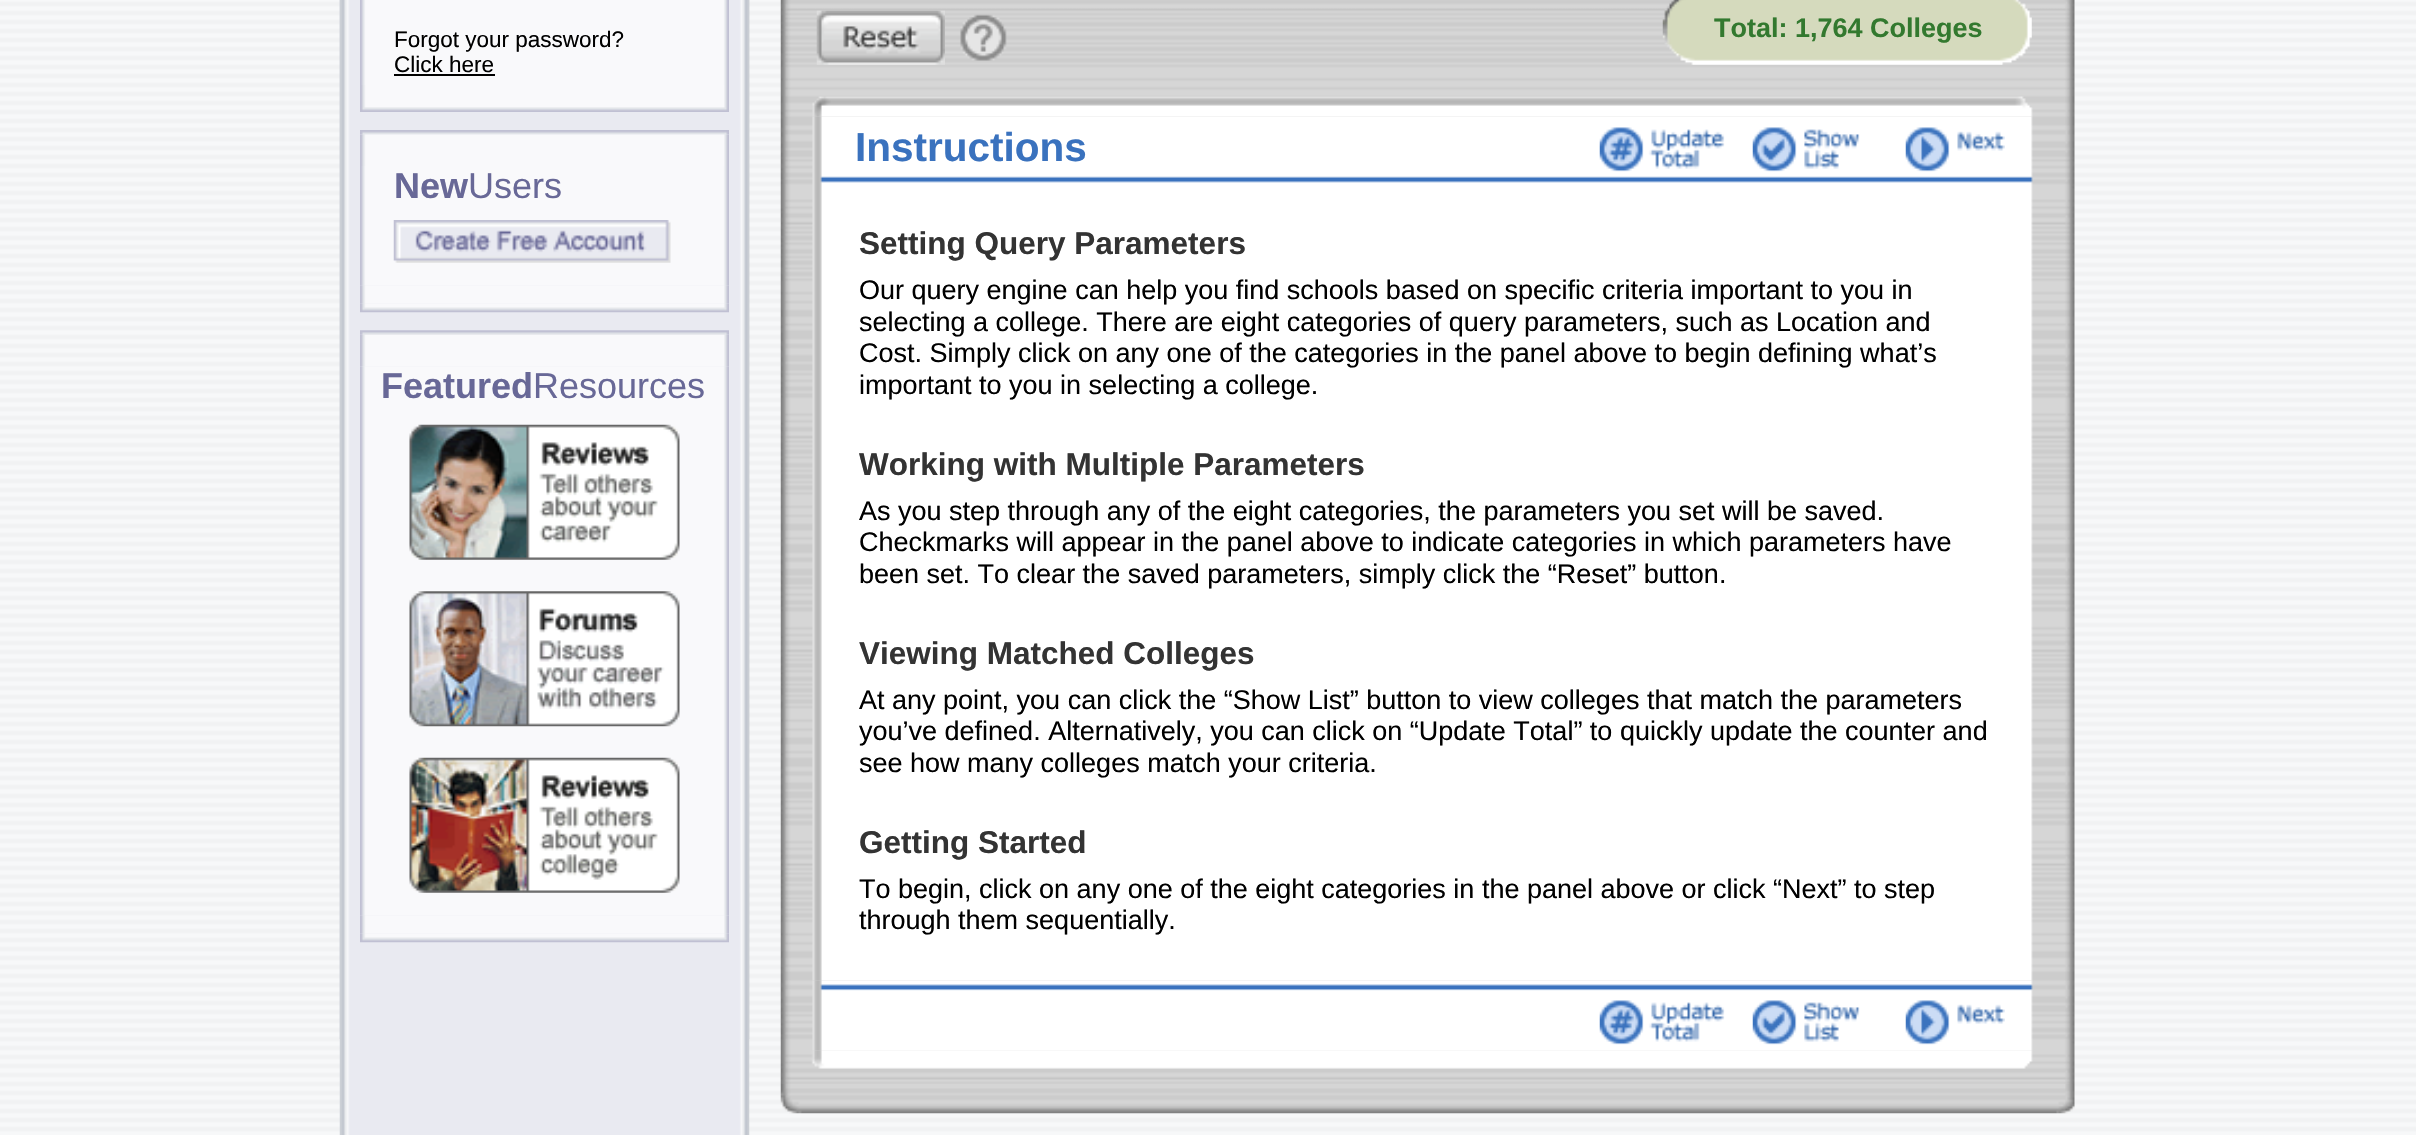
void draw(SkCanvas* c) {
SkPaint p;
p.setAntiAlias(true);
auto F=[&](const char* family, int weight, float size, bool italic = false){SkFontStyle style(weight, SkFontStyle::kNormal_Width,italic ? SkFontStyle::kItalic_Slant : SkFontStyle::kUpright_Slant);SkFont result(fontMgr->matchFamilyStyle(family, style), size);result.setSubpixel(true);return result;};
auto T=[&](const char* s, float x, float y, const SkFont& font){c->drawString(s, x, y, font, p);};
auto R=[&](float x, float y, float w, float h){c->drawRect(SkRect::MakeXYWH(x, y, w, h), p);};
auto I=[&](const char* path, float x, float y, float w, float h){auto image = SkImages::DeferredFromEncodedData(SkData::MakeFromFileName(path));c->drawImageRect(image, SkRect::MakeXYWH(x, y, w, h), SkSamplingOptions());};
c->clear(0xffffffff);
I("1.png",0,0,2416,1135);
I("2.png",339,0,411,1135);
I("3.png",339,0,411,1039);
I("4.png",360,0,369,85);
auto f1 = F("Liberation Sans",400,22.5);
p.setColor(0xff000000);
T("Forgot your password?",394,47,f1);
T("Click here",394,72,f1);
R(394,74,101,2);
I("5.png",360,85,369,18);
I("6.png",360,103,369,9);
I("7.png",360,130,369,5);
I("8.png",360,134,369,32);
I("9.png",360,166,369,120);
auto f2 = F("Liberation Sans",700,36);
p.setColor(0xff686897);
T("New",394,198,f2);
auto f3 = F("Liberation Sans",400,36);
T("Users",468,198,f3);
I("10.png",393,220,278,43);
I("11.png",360,285,369,19);
I("12.png",360,303,369,10);
I("13.png",360,330,369,5);
I("14.png",360,334,369,33);
I("15.png",360,366,369,550);
T("Featured",381,398,f2);
T("Resources",533,398,f3);
I("16.png",409,424,271,136);
I("17.png",409,591,271,136);
I("18.png",409,757,271,136);
I("11.png",360,915,369,19);
I("12.png",360,933,369,10);
I("19.png",780,0,1295,1084);
I("20.png",816,10,129,55);
I("21.png",960,14,47,47);
I("22.png",1662,0,370,65);
auto f4 = F("Liberation Sans",700,27);
p.setColor(0xff33792f);
T("Total: 1,764 Colleges",1714,37,f4);
I("24.png",812,116,1221,68);
I("23.png",812,96,1221,21);
auto f5 = F("Liberation Sans",700,40.5);
p.setColor(0xff3a72be);
T("Instructions",855,161,f5);
I("25.png",1599,127,126,45);
I("26.png",1752,127,108,45);
I("27.png",1905,127,100,45);
I("28.png",812,184,1221,797);
auto f6 = F("Liberation Sans",700,31.5);
p.setColor(0xff333333);
T("Setting Query Parameters",859,254,f6);
auto f7 = F("Liberation Sans",400,27);
p.setColor(0xff000000);
T("Our query engine can help you find schools based on specific criteria important to you in",859,299,f7);
T("selecting a college. There are eight categories of query parameters, such as Location and",859,331,f7);
T("Cost. Simply click on any one of the categories in the panel above to begin defining what’s",859,362,f7);
T("important to you in selecting a college.",859,394,f7);
p.setColor(0xff333333);
T("Working with Multiple Parameters",859,475,f6);
p.setColor(0xff000000);
T("As you step through any of the eight categories, the parameters you set will be saved.",859,520,f7);
T("Checkmarks will appear in the panel above to indicate categories in which parameters have",859,551,f7);
T("been set. To clear the saved parameters, simply click the “Reset” button.",859,583,f7);
p.setColor(0xff333333);
T("Viewing Matched Colleges",859,664,f6);
p.setColor(0xff000000);
T("At any point, you can click the “Show List” button to view colleges that match the parameters",859,709,f7);
T("you’ve defined. Alternatively, you can click on “Update Total” to quickly update the counter and",859,740,f7);
T("see how many colleges match your criteria.",859,772,f7);
p.setColor(0xff333333);
T("Getting Started",859,853,f6);
p.setColor(0xff000000);
T("To begin, click on any one of the eight categories in the panel above or click “Next” to step",859,898,f7);
T("through them sequentially.",859,929,f7);
I("29.png",812,980,1221,71);
I("25.png",1599,1000,126,45);
I("26.png",1752,1000,108,45);
I("27.png",1905,1000,100,45);
I("30.png",811,1050,1222,19);
I("31.png",780,1084,1295,30);
}
